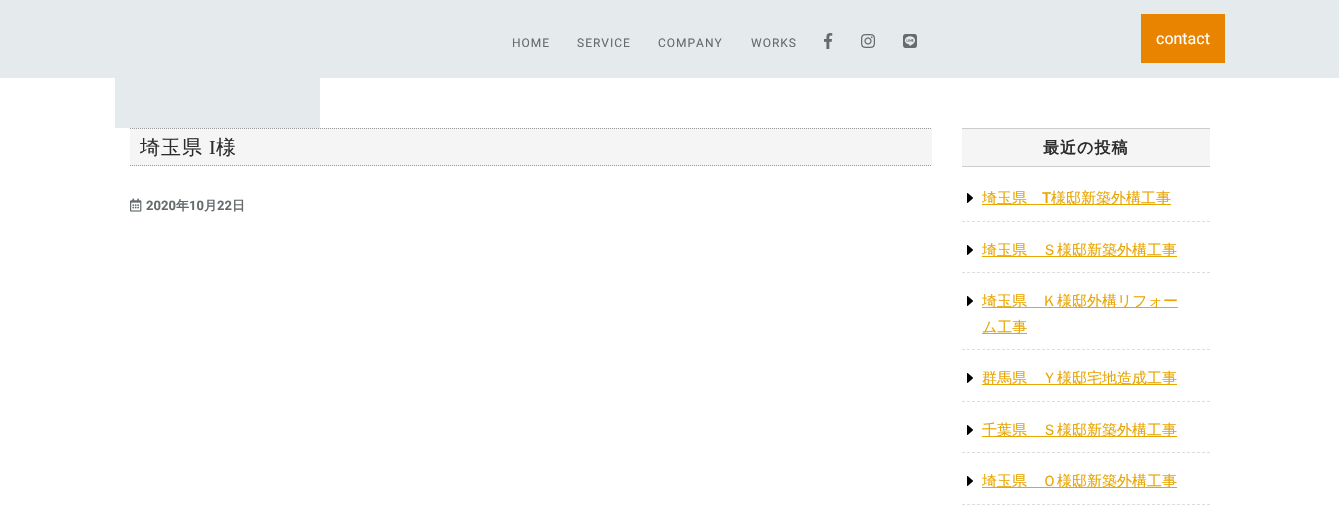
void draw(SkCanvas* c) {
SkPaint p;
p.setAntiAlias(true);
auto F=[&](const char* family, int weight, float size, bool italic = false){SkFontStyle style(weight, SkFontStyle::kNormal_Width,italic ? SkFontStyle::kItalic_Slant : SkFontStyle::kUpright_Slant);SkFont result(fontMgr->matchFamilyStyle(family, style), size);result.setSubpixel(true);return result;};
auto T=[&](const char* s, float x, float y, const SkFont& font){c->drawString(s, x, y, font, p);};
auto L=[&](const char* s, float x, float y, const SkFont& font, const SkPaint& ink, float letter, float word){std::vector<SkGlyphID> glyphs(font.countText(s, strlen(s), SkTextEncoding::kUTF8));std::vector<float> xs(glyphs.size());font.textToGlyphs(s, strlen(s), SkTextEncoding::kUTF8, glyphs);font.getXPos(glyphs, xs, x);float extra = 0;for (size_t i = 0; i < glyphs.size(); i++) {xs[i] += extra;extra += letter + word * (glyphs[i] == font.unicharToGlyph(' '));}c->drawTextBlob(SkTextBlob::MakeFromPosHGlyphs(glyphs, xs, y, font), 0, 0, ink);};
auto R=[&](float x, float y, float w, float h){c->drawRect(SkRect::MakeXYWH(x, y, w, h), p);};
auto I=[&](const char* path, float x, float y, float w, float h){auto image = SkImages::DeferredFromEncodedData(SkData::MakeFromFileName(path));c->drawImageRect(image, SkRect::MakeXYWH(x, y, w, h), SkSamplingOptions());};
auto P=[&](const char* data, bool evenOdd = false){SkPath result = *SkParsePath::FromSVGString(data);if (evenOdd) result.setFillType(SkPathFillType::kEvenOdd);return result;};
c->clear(0xffffffff);
p.setColor(0xffe5eaec);
R(0,0,1339,78);
auto f1 = F("Roboto",400,12);
p.setColor(0xff666c6e);
L("HOME",512,47,f1,p,1,0);
L("SERVICE",577,47,f1,p,1,0);
L("COMPANY",658,47,f1,p,1,0);
L("WORKS",751,47,f1,p,1,0);
I("1.png",824,33,9,16);
I("2.png",861,34,14,14);
I("3.png",903,34,14,14);
p.setColor(0xffe98401);
R(1141,14,84,49);
auto f2 = F("Roboto",400,16);
p.setColor(0xffffffff);
T("contact",1156,44,f2);
p.setColor(0xffe5eaec);
R(115,78,205,50);
p.setColor(0xfff5f5f5);
R(130,128,802,38);
p.setStroke(true);
p.setStrokeWidth(1);
p.setColor(0xff999999);
p.setPathEffect(SkDashPathEffect::Make({{1,1}}, 0));
c->drawPath(P("M130 128.5h802"),p);
p.setPathEffect(nullptr);
p.setPathEffect(SkDashPathEffect::Make({{1,1}}, 0));
c->drawPath(P("M130 165.5h802"),p);
p.setPathEffect(nullptr);
auto f3 = F("WenQuanYi Zen Hei",500,20);
p.setStroke(false);
p.setColor(0xff2c2c2c);
L("埼玉県",140,154,f3,p,1,0);
auto f4 = F("Liberation Serif",400,20);
L("I",209,154,f4,p,1,0);
L("様",216,154,f3,p,1,0);
I("4.png",130,198,12,14);
auto f5 = F("Roboto",700,13);
p.setColor(0xff666c6e);
T("2020",146,210,f5);
auto f6 = F("WenQuanYi Zen Hei",700,13);
T("年",176,210,f6);
T("10",189,210,f5);
T("月",204,210,f6);
T("22",217,210,f5);
T("日",232,210,f6);
p.setColor(0xfff5f5f5);
R(962,129,248,37);
p.setColor(0xffcccccc);
R(962,128,248,1);
R(962,166,248,1);
auto f7 = F("WenQuanYi Zen Hei",700,16);
p.setColor(0xff2c2c2c);
L("最近の投稿",1043,153,f7,p,1,0);
I("5.png",967,193,6,10);
p.setStroke(true);
p.setColor(0xffdddddd);
p.setPathEffect(SkDashPathEffect::Make({{3,2}}, 0));
c->drawPath(P("M962 221.5h248"),p);
p.setPathEffect(nullptr);
p.setStroke(false);
p.setColor(0xffe9a502);
R(982,204,189,1);
auto f8 = F("WenQuanYi Zen Hei",500,15);
T("埼玉県",982,203,f8);
auto f9 = F("Roboto",500,15);
T("T",1042,203,f9);
T("様邸新築外構工事",1051,203,f8);
I("5.png",967,245,6,10);
p.setStroke(true);
p.setColor(0xffdddddd);
p.setPathEffect(SkDashPathEffect::Make({{3,2}}, 0));
c->drawPath(P("M962 272.5h248"),p);
p.setPathEffect(nullptr);
p.setStroke(false);
p.setColor(0xffe9a502);
R(982,256,195,1);
T("埼玉県　Ｓ様邸新築外構工事",982,255,f8);
I("5.png",967,296,6,10);
p.setStroke(true);
p.setColor(0xffdddddd);
p.setPathEffect(SkDashPathEffect::Make({{3,2}}, 0));
c->drawPath(P("M962 349.5h248"),p);
p.setPathEffect(nullptr);
p.setStroke(false);
p.setColor(0xffe9a502);
R(982,307,196,1);
T("埼玉県　Ｋ様邸外構リフォー",982,306,f8);
R(982,333,45,1);
T("ム工事",982,332,f8);
I("5.png",967,373,6,10);
p.setStroke(true);
p.setColor(0xffdddddd);
p.setPathEffect(SkDashPathEffect::Make({{3,2}}, 0));
c->drawPath(P("M962 401.5h248"),p);
p.setPathEffect(nullptr);
p.setStroke(false);
p.setColor(0xffe9a502);
R(982,384,195,1);
T("群馬県　Ｙ様邸宅地造成工事",982,383,f8);
I("5.png",967,425,6,10);
p.setStroke(true);
p.setColor(0xffdddddd);
p.setPathEffect(SkDashPathEffect::Make({{3,2}}, 0));
c->drawPath(P("M962 452.5h248"),p);
p.setPathEffect(nullptr);
p.setStroke(false);
p.setColor(0xffe9a502);
R(982,436,195,1);
T("千葉県　Ｓ様邸新築外構工事",982,435,f8);
I("5.png",967,476,6,10);
p.setStroke(true);
p.setColor(0xffdddddd);
p.setPathEffect(SkDashPathEffect::Make({{3,2}}, 0));
c->drawPath(P("M962 504.5h248"),p);
p.setPathEffect(nullptr);
p.setStroke(false);
p.setColor(0xffe9a502);
R(982,487,195,1);
T("埼玉県　Ｏ様邸新築外構工事",982,486,f8);
}
